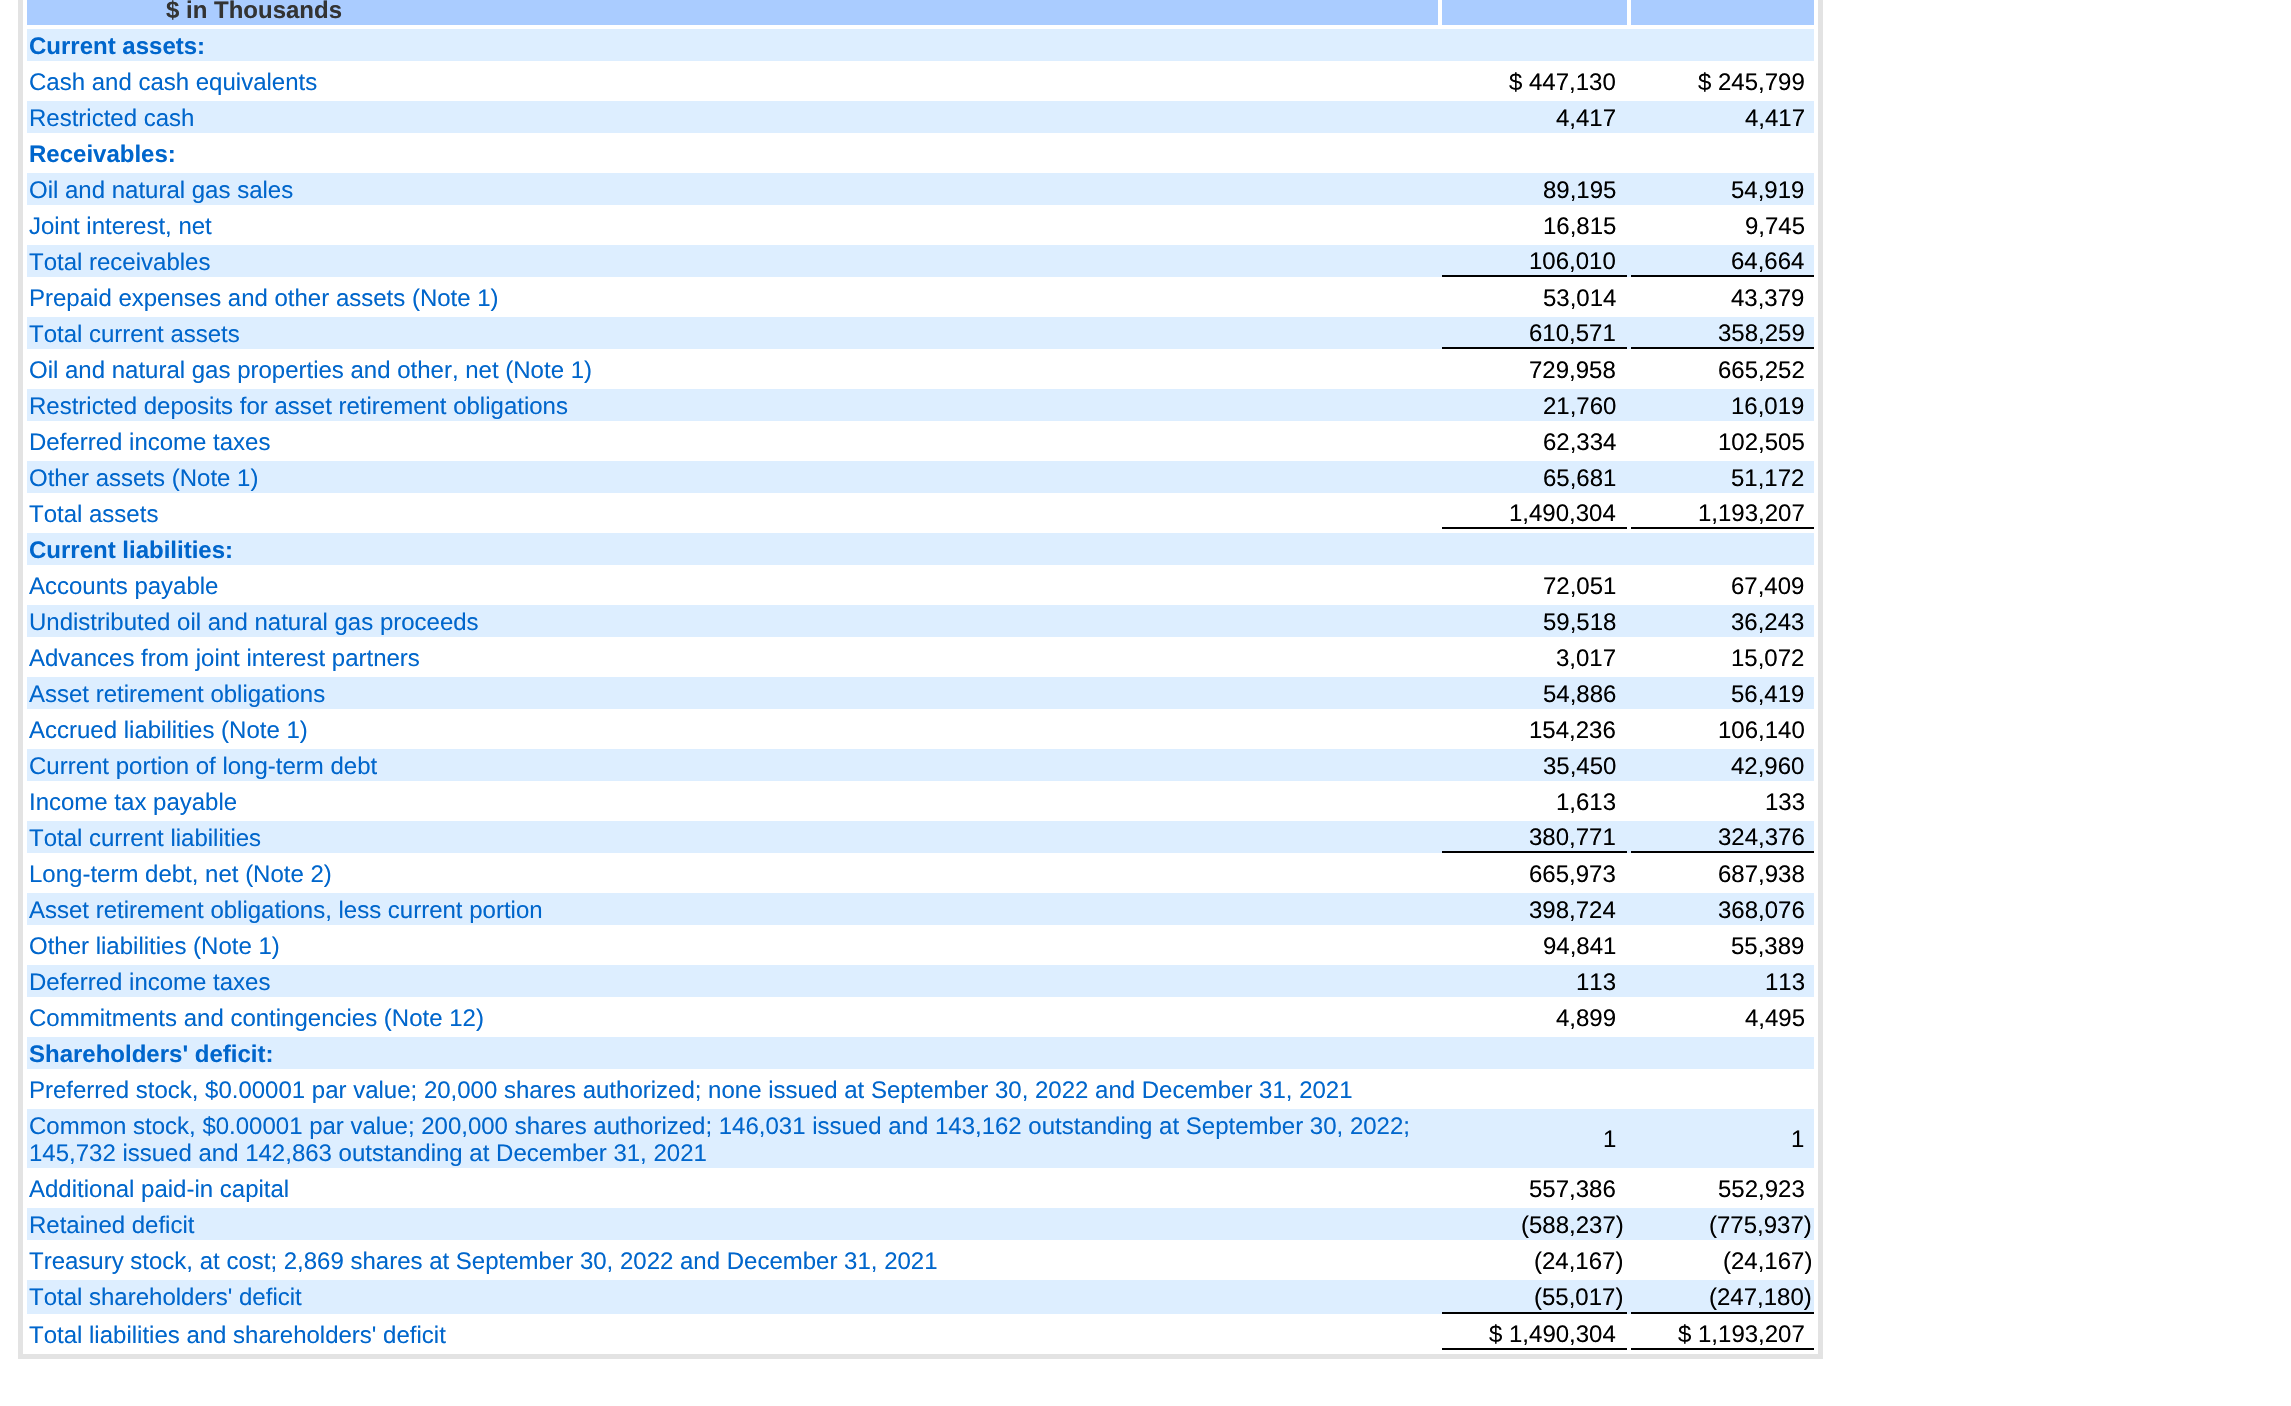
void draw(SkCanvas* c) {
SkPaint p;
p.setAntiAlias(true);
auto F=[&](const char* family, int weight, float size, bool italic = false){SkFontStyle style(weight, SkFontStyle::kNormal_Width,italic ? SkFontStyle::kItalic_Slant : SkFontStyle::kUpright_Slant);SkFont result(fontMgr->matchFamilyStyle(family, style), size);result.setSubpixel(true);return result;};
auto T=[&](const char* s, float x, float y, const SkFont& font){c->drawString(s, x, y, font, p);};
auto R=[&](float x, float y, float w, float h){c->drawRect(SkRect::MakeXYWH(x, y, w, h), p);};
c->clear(0xffffffff);
p.setStroke(true);
p.setStrokeWidth(5);
p.setColor(0xffe3e3e3);
c->drawRect(SkRect::MakeXYWH(20.5,-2.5,1800,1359),p);
p.setStroke(false);
p.setColor(0xffaaccff);
R(27,0,1411,25);
auto f1 = F("Liberation Sans",700,24);
p.setColor(0xff333333);
T("$ in Thousands",166,18,f1);
p.setColor(0xffaaccff);
R(1442,0,185,25);
R(1631,0,183,25);
p.setColor(0xffddeeff);
R(27,29,1787,32);
p.setColor(0xff0066cc);
T("Current assets:",29,54,f1);
auto f2 = F("Liberation Sans",400,24);
T("Cash and cash equivalents",29,90,f2);
p.setColor(0xff000000);
T("$ 447,130",1509,90,f2);
T("$ 245,799",1698,90,f2);
p.setColor(0xffddeeff);
R(27,101,1787,32);
p.setColor(0xff0066cc);
T("Restricted cash",29,126,f2);
p.setColor(0xff000000);
T("4,417",1556,126,f2);
T("4,417",1745,126,f2);
p.setColor(0xff0066cc);
T("Receivables:",29,162,f1);
p.setColor(0xffddeeff);
R(27,173,1787,32);
p.setColor(0xff0066cc);
T("Oil and natural gas sales",29,198,f2);
p.setColor(0xff000000);
T("89,195",1543,198,f2);
T("54,919",1731,198,f2);
p.setColor(0xff0066cc);
T("Joint interest, net",29,234,f2);
p.setColor(0xff000000);
T("16,815",1543,234,f2);
T("9,745",1745,234,f2);
p.setColor(0xffddeeff);
R(27,245,1787,32);
p.setColor(0xff0066cc);
T("Total receivables",29,270,f2);
p.setColor(0xff000000);
R(1442,275,185,2);
T("106,010",1529,269,f2);
R(1631,275,183,2);
T("64,664",1731,269,f2);
p.setColor(0xff0066cc);
T("Prepaid expenses and other assets (Note 1)",29,306,f2);
p.setColor(0xff000000);
T("53,014",1543,306,f2);
T("43,379",1731,306,f2);
p.setColor(0xffddeeff);
R(27,317,1787,32);
p.setColor(0xff0066cc);
T("Total current assets",29,342,f2);
p.setColor(0xff000000);
R(1442,347,185,2);
T("610,571",1529,341,f2);
R(1631,347,183,2);
T("358,259",1718,341,f2);
p.setColor(0xff0066cc);
T("Oil and natural gas properties and other, net (Note 1)",29,378,f2);
p.setColor(0xff000000);
T("729,958",1529,378,f2);
T("665,252",1718,378,f2);
p.setColor(0xffddeeff);
R(27,389,1787,32);
p.setColor(0xff0066cc);
T("Restricted deposits for asset retirement obligations",29,414,f2);
p.setColor(0xff000000);
T("21,760",1543,414,f2);
T("16,019",1731,414,f2);
p.setColor(0xff0066cc);
T("Deferred income taxes",29,450,f2);
p.setColor(0xff000000);
T("62,334",1543,450,f2);
T("102,505",1718,450,f2);
p.setColor(0xffddeeff);
R(27,461,1787,32);
p.setColor(0xff0066cc);
T("Other assets (Note 1)",29,486,f2);
p.setColor(0xff000000);
T("65,681",1543,486,f2);
T("51,172",1731,486,f2);
p.setColor(0xff0066cc);
T("Total assets",29,522,f2);
p.setColor(0xff000000);
R(1442,527,185,2);
T("1,490,304",1509,521,f2);
R(1631,527,183,2);
T("1,193,207",1698,521,f2);
p.setColor(0xffddeeff);
R(27,533,1787,32);
p.setColor(0xff0066cc);
T("Current liabilities:",29,558,f1);
T("Accounts payable",29,594,f2);
p.setColor(0xff000000);
T("72,051",1543,594,f2);
T("67,409",1731,594,f2);
p.setColor(0xffddeeff);
R(27,605,1787,32);
p.setColor(0xff0066cc);
T("Undistributed oil and natural gas proceeds",29,630,f2);
p.setColor(0xff000000);
T("59,518",1543,630,f2);
T("36,243",1731,630,f2);
p.setColor(0xff0066cc);
T("Advances from joint interest partners",29,666,f2);
p.setColor(0xff000000);
T("3,017",1556,666,f2);
T("15,072",1731,666,f2);
p.setColor(0xffddeeff);
R(27,677,1787,32);
p.setColor(0xff0066cc);
T("Asset retirement obligations",29,702,f2);
p.setColor(0xff000000);
T("54,886",1543,702,f2);
T("56,419",1731,702,f2);
p.setColor(0xff0066cc);
T("Accrued liabilities (Note 1)",29,738,f2);
p.setColor(0xff000000);
T("154,236",1529,738,f2);
T("106,140",1718,738,f2);
p.setColor(0xffddeeff);
R(27,749,1787,32);
p.setColor(0xff0066cc);
T("Current portion of long-term debt",29,774,f2);
p.setColor(0xff000000);
T("35,450",1543,774,f2);
T("42,960",1731,774,f2);
p.setColor(0xff0066cc);
T("Income tax payable",29,810,f2);
p.setColor(0xff000000);
T("1,613",1556,810,f2);
T("133",1765,810,f2);
p.setColor(0xffddeeff);
R(27,821,1787,32);
p.setColor(0xff0066cc);
T("Total current liabilities",29,846,f2);
p.setColor(0xff000000);
R(1442,851,185,2);
T("380,771",1529,845,f2);
R(1631,851,183,2);
T("324,376",1718,845,f2);
p.setColor(0xff0066cc);
T("Long-term debt, net (Note 2)",29,882,f2);
p.setColor(0xff000000);
T("665,973",1529,882,f2);
T("687,938",1718,882,f2);
p.setColor(0xffddeeff);
R(27,893,1787,32);
p.setColor(0xff0066cc);
T("Asset retirement obligations, less current portion",29,918,f2);
p.setColor(0xff000000);
T("398,724",1529,918,f2);
T("368,076",1718,918,f2);
p.setColor(0xff0066cc);
T("Other liabilities (Note 1)",29,954,f2);
p.setColor(0xff000000);
T("94,841",1543,954,f2);
T("55,389",1731,954,f2);
p.setColor(0xffddeeff);
R(27,965,1787,32);
p.setColor(0xff0066cc);
T("Deferred income taxes",29,990,f2);
p.setColor(0xff000000);
T("113",1576,990,f2);
T("113",1765,990,f2);
p.setColor(0xff0066cc);
T("Commitments and contingencies (Note 12)",29,1026,f2);
p.setColor(0xff000000);
T("4,899",1556,1026,f2);
T("4,495",1745,1026,f2);
p.setColor(0xffddeeff);
R(27,1037,1787,32);
p.setColor(0xff0066cc);
T("Shareholders' deficit:",29,1062,f1);
T("Preferred stock, $0.00001 par value; 20,000 shares authorized; none issued at September 30, 2022 and December 31, 2021",29,1098,f2);
p.setColor(0xffddeeff);
R(27,1109,1787,59);
p.setColor(0xff0066cc);
T("Common stock, $0.00001 par value; 200,000 shares authorized; 146,031 issued and 143,162 outstanding at September 30, 2022;",29,1134,f2);
T("145,732 issued and 142,863 outstanding at December 31, 2021",29,1161,f2);
p.setColor(0xff000000);
T("1",1603,1147,f2);
T("1",1791,1147,f2);
p.setColor(0xff0066cc);
T("Additional paid-in capital",29,1197,f2);
p.setColor(0xff000000);
T("557,386",1529,1197,f2);
T("552,923",1718,1197,f2);
p.setColor(0xffddeeff);
R(27,1208,1787,32);
p.setColor(0xff0066cc);
T("Retained deficit",29,1233,f2);
p.setColor(0xff000000);
T("(588,237)",1521,1233,f2);
T("(775,937)",1709,1233,f2);
p.setColor(0xff0066cc);
T("Treasury stock, at cost; 2,869 shares at September 30, 2022 and December 31, 2021",29,1269,f2);
p.setColor(0xff000000);
T("(24,167)",1534,1269,f2);
T("(24,167)",1723,1269,f2);
p.setColor(0xffddeeff);
R(27,1280,1787,34);
p.setColor(0xff0066cc);
T("Total shareholders' deficit",29,1305,f2);
p.setColor(0xff000000);
R(1442,1312,185,2);
T("(55,017)",1534,1305,f2);
R(1631,1312,183,2);
T("(247,180)",1709,1305,f2);
p.setColor(0xff0066cc);
T("Total liabilities and shareholders' deficit",29,1343,f2);
p.setColor(0xff000000);
R(1442,1348,185,2);
T("$ 1,490,304",1489,1342,f2);
R(1631,1348,183,2);
T("$ 1,193,207",1678,1342,f2);
}
